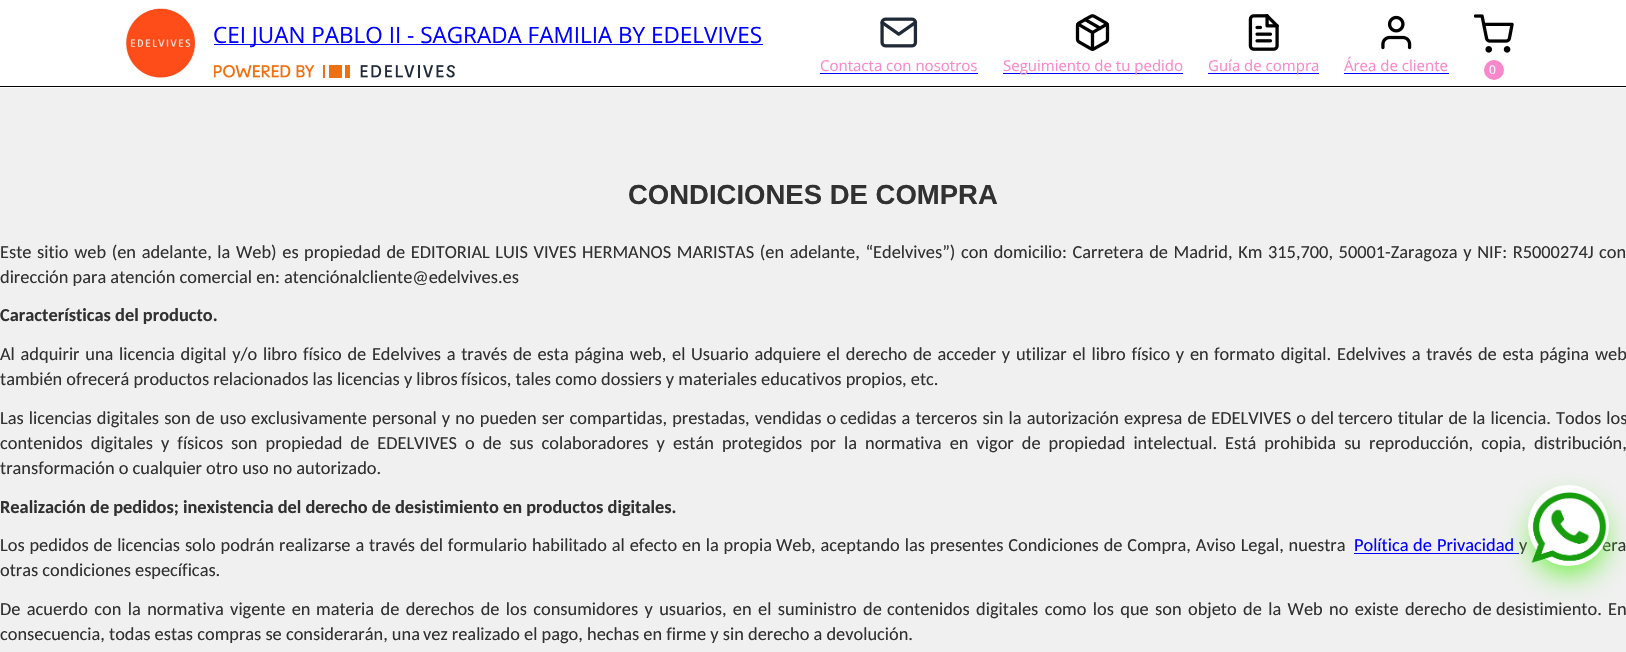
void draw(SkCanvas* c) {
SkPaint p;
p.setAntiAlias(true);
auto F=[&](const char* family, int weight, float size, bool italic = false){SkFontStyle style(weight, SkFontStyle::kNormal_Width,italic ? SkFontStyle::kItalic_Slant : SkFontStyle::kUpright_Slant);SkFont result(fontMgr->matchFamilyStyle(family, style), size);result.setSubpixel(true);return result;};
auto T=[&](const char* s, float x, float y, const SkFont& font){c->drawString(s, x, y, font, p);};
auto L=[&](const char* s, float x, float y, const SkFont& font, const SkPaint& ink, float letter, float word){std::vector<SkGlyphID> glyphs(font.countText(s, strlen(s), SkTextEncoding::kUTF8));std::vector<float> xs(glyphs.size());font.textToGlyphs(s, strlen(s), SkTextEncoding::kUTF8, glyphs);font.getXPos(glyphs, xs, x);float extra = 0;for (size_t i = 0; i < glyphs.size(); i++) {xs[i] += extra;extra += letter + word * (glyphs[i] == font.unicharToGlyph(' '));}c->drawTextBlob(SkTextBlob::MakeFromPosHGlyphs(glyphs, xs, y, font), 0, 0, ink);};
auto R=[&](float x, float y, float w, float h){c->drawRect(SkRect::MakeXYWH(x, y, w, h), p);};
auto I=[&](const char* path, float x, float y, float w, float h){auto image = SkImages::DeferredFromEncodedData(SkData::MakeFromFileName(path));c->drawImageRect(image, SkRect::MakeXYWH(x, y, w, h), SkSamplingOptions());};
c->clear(0xfff0f0f0);
p.setColor(0xffffffff);
R(0,0,1626,88);
p.setColor(0xff000000);
R(0,86,1626,1);
I("1.png",126,8,69,70);
p.setColor(0xff0000ff);
R(214,44,549,1);
auto f1 = F("Open Sans",400,22.5);
T("CEI JUAN PABLO II - SAGRADA FAMILIA BY EDELVIVES",213,43,f1);
I("2.png",214,65,241,13);
I("3.png",880,17,38,31);
auto f2 = F("Open Sans",400,15);
p.setColor(0xfffa87c9);
T("Contacta con nosotros",820,71,f2);
p.setColor(0xff0000ff);
R(820,73,158,1);
I("4.png",1075,14,35,37);
R(1003,73,180,1);
p.setColor(0xfffa87c9);
T("Seguimiento de tu pedido",1003,71,f2);
I("5.png",1248,14,31,37);
p.setColor(0xff0000ff);
R(1208,73,111,1);
p.setColor(0xfffa87c9);
T("Guía de compra",1208,71,f2);
I("6.png",1381,15,31,35);
T("Área de cliente",1344,71,f2);
p.setColor(0xff0000ff);
R(1344,73,105,1);
I("7.png",1474,14,40,39);
p.setColor(0xfffa87c9);
c->drawCircle(1494,70,10,p);
auto f3 = F("Open Sans",400,12);
p.setColor(0xffffffff);
T("0",1489,74,f3);
auto f4 = F("Liberation Sans",700,27.5);
p.setColor(0xff313131);
T("CONDICIONES DE COMPRA",628,204,f4);
auto f5 = F("Carlito",400,18.35);
L("Este sitio web (en adelante, la Web) es",0,258,f5,p,0,1.5);
L("propiedad de EDITORIAL LUIS VIVES HERMANOS MARISTAS (en adelante, “Edelvives”)",304,258,f5,p,0,1.5);
L("con domicilio: Carretera de Madrid, Km 315,700, 50001-Zaragoza y NIF: R5000274J",961,258,f5,p,0,1.5);
T("con",1599,258,f5);
T("dirección para atención comercial en: atenciónalcliente@edelvives.es",0,283,f5);
auto f6 = F("Carlito",700,18.35);
T("Características del producto.",0,321,f6);
L("Al adquirir una licencia digital y/o libro",0,360,f5,p,0,1.6);
L("físico de Edelvives a través de esta página web, el",303,360,f5,p,0,1.6);
L("Usuario adquiere el derecho de acceder y utilizar el libro físico y en",691,360,f5,p,0,1.6);
L("formato digital. Edelvives a través de esta página web",1214,360,f5,p,0,1.6);
T("también ofrecerá productos relacionados las licencias y libros",0,385,f5);
T("físicos, tales como dossiers y materiales educativos propios, etc.",461,385,f5);
L("Las licencias digitales son de uso",0,424,f5,p,0,1);
L("exclusivamente personal y no pueden ser compartidas, prestadas, vendidas o",251,424,f5,p,0,1);
L("cedidas a terceros sin la autorización expresa de EDELVIVES o del",840,424,f5,p,0,1);
L("tercero titular de la licencia. Todos los",1338,424,f5,p,0,1);
L("contenidos digitales y físicos",0,449,f5,p,0,3.9);
L("son propiedad de EDELVIVES o de sus colaboradores y están protegidos por",231,449,f5,p,0,3.9);
L("la normativa en vigor de propiedad intelectual. Está prohibida su",844,449,f5,p,0,3.9);
L("reproducción, copia, distribución,",1369,449,f5,p,0,3.9);
T("transformación o cualquier otro uso no autorizado.",0,474,f5);
T("Realización de pedidos; inexistencia del derecho de desistimiento en productos digitales.",0,513,f6);
L("Los pedidos de licencias solo podrán",0,551,f5,p,0,.75);
L("realizarse a través del formulario habilitado al efecto en la propia",279,551,f5,p,0,.75);
L("Web, aceptando las presentes Condiciones de Compra, Aviso Legal, nuestra",776,551,f5,p,0,.75);
p.setColor(0xff0000ff);
T("Política",1354,551,f5);
R(1354,553,165,1);
L("de Privacidad",1413,551,f5,p,0,1);
p.setColor(0xff313131);
L("y",1519,551,f5,p,0,1);
L("era",1602,551,f5,p,0,1);
T("otras condiciones específicas.",0,576,f5);
L("De acuerdo con la normativa vigente en",0,615,f5,p,0,2.25);
L("materia de derechos de los consumidores y usuarios, en el suministro de",316,615,f5,p,0,2.25);
L("contenidos digitales como los que son objeto de la Web no existe derecho de",887,615,f5,p,0,2.25);
L("desistimiento. En",1496,615,f5,p,0,2);
T("consecuencia, todas estas compras se considerarán, una",0,640,f5);
T("vez realizado el pago, hechas en firme y sin derecho a devolución.",423,640,f5);
p.setColor(0xff5cf02c);
p.setMaskFilter(SkMaskFilter::MakeBlur(kNormal_SkBlurStyle, 15.5));
c->drawRoundRect(SkRect::MakeXYWH(1534,504,69,69),34.5,34.5,p);
p.setMaskFilter(nullptr);
p.setColor(0xffffffff);
c->drawCircle(1568.5,525.5,40.5,p);
I("8.png",1531,492,76,71);
}
